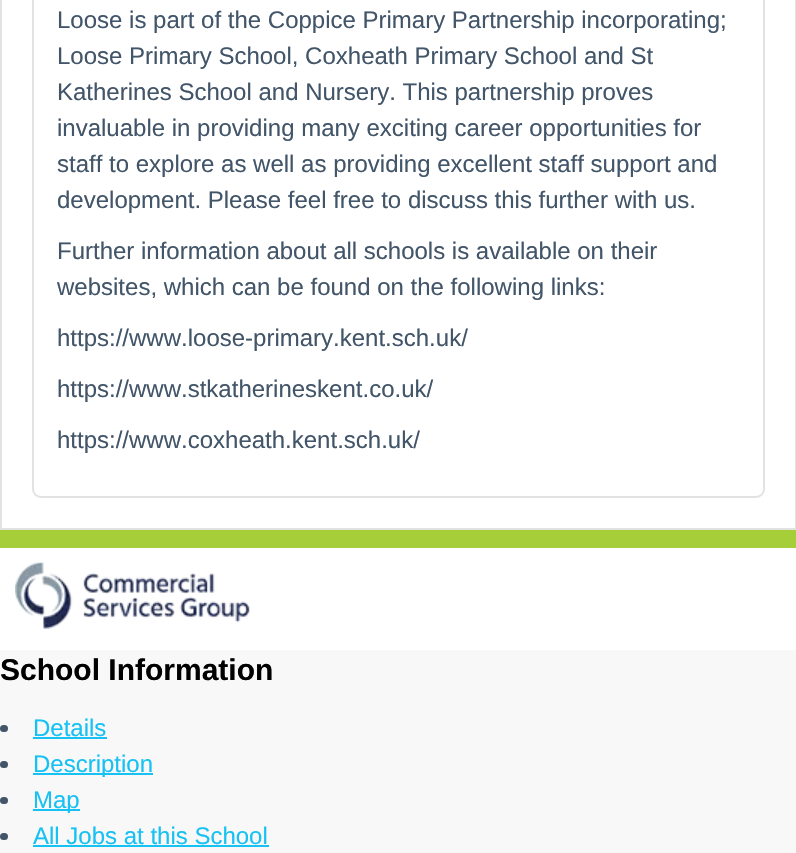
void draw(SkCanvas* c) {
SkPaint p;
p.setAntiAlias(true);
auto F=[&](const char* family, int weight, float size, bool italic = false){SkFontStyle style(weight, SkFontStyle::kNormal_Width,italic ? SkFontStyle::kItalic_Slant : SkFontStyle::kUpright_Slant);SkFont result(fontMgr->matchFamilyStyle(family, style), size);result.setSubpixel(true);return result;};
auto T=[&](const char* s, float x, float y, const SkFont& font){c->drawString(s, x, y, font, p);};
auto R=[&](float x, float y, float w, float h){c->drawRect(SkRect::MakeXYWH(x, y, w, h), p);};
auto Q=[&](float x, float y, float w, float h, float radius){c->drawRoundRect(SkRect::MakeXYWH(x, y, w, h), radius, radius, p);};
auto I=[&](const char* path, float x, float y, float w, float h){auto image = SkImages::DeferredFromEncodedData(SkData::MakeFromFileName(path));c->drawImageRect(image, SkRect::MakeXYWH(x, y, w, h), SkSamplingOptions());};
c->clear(0xfff8f8f8);
p.setColor(0xffffffff);
c->drawRect(SkRect::MakeXYWH(1,-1,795,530),p);
p.setStroke(true);
p.setStrokeWidth(2);
p.setColor(0xffe2e2e2);
c->drawRect(SkRect::MakeXYWH(1,-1,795,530),p);
c->drawRoundRect(SkRect::MakeXYWH(33,-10,731,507),8,8,p);
auto f1 = F("Liberation Sans",400,24);
p.setStroke(false);
p.setColor(0xff425569);
T("Loose is part of the Coppice Primary Partnership incorporating;",57,28,f1);
T("Loose Primary School, Coxheath Primary School and St",57,64,f1);
T("Katherines School and Nursery. This partnership proves",57,100,f1);
T("invaluable in providing many exciting career opportunities for",57,136,f1);
T("staff to explore as well as providing excellent staff support and",57,172,f1);
T("development. Please feel free to discuss this further with us.",57,208,f1);
T("Further information about all schools is available on their",57,259,f1);
T("websites, which can be found on the following links:",57,295,f1);
T("https://www.loose-primary.kent.sch.uk/",57,346,f1);
T("https://www.stkatherineskent.co.uk/",57,397,f1);
T("https://www.coxheath.kent.sch.uk/",57,448,f1);
p.setColor(0xffffffff);
R(0,548,796,102);
p.setColor(0xffa6ce39);
R(0,530,796,18);
I("1.png",15,562,235,67);
auto f2 = F("Liberation Sans",700,30);
p.setColor(0xff000000);
T("School Information",0,680,f2);
p.setColor(0xff425569);
Q(0,725,8,7,3.5);
p.setColor(0xff16c1f3);
T("Details",33,736,f1);
R(33,737,74,2);
p.setColor(0xff425569);
Q(0,761,8,7,3.5);
p.setColor(0xff16c1f3);
R(33,773,120,2);
T("Description",33,772,f1);
p.setColor(0xff425569);
Q(0,797,8,7,3.5);
p.setColor(0xff16c1f3);
R(33,809,47,2);
T("Map",33,808,f1);
p.setColor(0xff425569);
Q(0,833,8,7,3.5);
p.setColor(0xff16c1f3);
T("All Jobs at this School",33,844,f1);
R(33,845,236,2);
}
